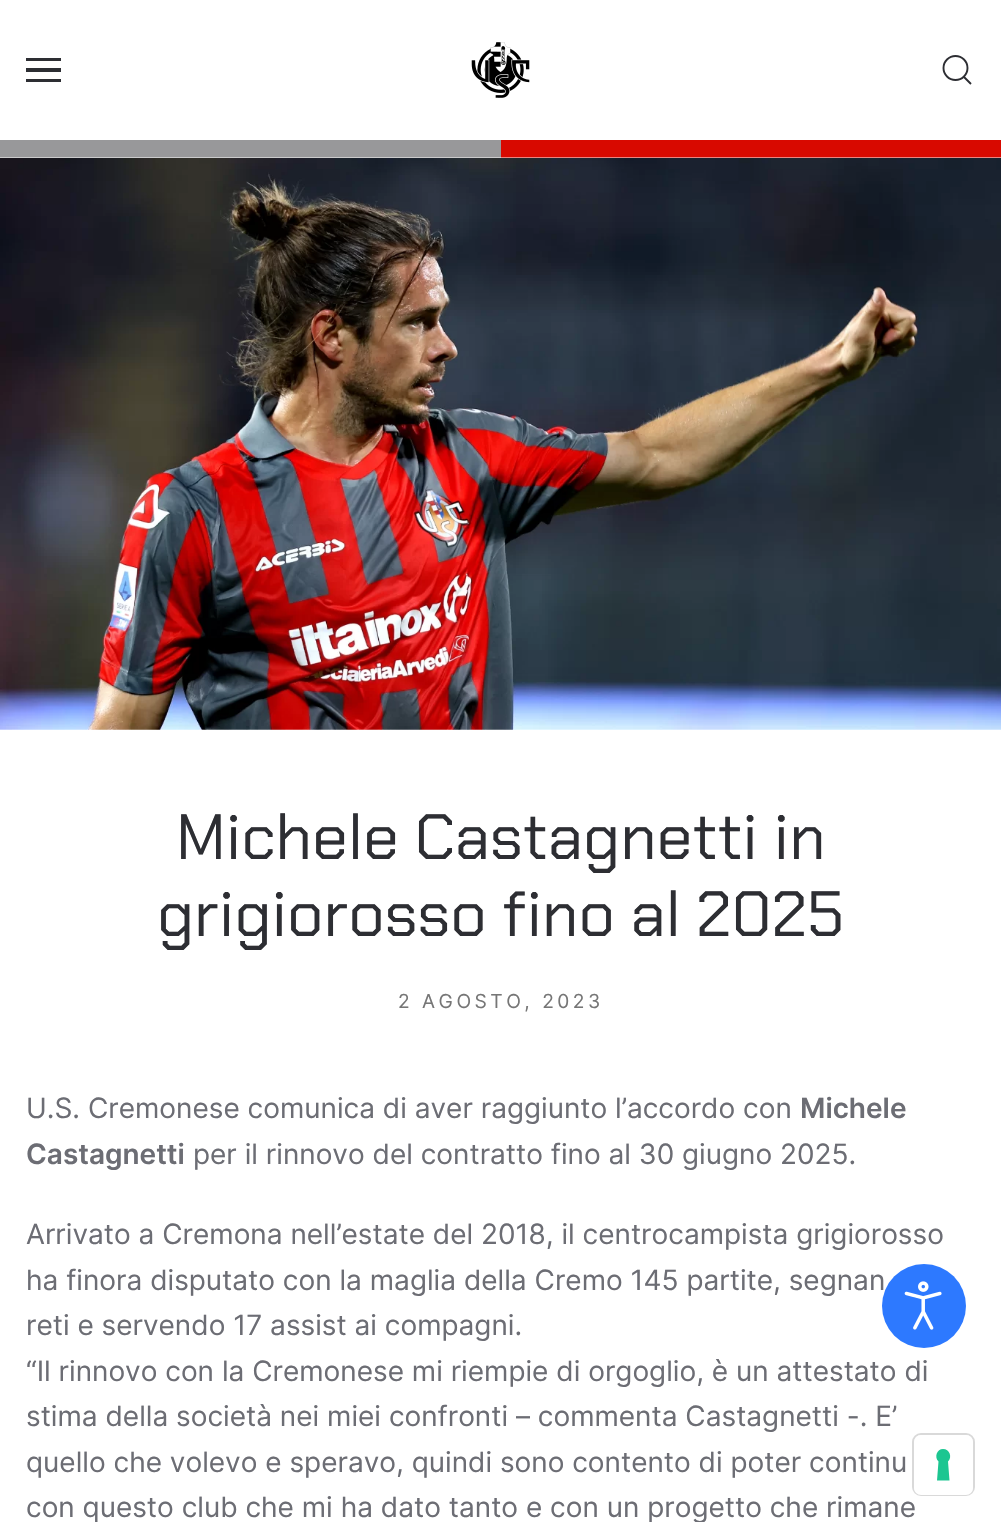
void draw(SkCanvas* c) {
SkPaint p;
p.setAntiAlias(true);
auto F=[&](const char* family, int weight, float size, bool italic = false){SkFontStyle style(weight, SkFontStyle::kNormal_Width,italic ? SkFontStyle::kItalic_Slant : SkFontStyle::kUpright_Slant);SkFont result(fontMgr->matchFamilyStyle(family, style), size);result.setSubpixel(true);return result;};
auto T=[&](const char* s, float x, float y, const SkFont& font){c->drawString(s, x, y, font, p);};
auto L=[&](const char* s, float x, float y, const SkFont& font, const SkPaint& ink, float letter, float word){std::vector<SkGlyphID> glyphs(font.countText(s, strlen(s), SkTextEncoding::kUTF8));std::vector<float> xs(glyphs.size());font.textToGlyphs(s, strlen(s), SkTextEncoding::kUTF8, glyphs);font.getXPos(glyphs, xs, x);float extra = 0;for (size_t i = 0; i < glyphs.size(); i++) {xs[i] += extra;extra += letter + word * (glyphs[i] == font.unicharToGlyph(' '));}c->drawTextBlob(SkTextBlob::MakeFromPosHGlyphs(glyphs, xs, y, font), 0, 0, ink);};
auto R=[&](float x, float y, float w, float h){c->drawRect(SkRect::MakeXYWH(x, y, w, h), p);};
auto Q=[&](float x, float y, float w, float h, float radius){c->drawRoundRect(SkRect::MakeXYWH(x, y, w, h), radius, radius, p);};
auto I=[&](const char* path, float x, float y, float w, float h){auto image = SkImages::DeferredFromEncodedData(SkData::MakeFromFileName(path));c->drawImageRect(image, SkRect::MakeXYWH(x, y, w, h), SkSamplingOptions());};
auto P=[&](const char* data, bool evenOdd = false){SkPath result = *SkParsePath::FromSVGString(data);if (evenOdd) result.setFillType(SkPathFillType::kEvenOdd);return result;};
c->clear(0xffffffff);
I("1.png",0,140,1001,18);
p.setColor(0xff2d2e33);
R(26,58,35,3);
R(26,68,35,4);
R(26,79,35,3);
I("2.png",471,42,59,56);
p.setStroke(true);
p.setStrokeWidth(1.9);
c->drawCircle(955.5,68,12,p);
c->drawPath(P("M964 77l7 7z"),p);
I("3.png",0,158,1001,572);
auto f1 = F("Chakra Petch",400,64);
p.setStroke(false);
T("Michele Castagnetti in",176,859,f1);
T("grigiorosso fino al 2025",157,936,f1);
auto f2 = F("Inter",400,19.25);
p.setColor(0xff767676);
L("2 AGOSTO, 2023",398,1008,f2,p,3.5,0);
auto f3 = F("Inter",400,28);
p.setColor(0xff6c6d74);
T("U.S. Cremonese comunica di aver raggiunto l’accordo con",26,1118,f3);
auto f4 = F("Inter",600,28);
T("Michele",800,1118,f4);
T("Castagnetti",26,1164,f4);
T("per il rinnovo del contratto fino al 30 giugno 2025.",193,1164,f3);
T("Arrivato a Cremona nell’estate del 2018, il centrocampista grigiorosso",26,1244,f3);
T("ha finora disputato con la maglia della Cremo 145 partite, segnan",26,1290,f3);
T("reti e servendo 17 assist ai compagni.",26,1335,f3);
T("“Il rinnovo con la Cremonese mi riempie di orgoglio, è un attestato di",26,1381,f3);
T("stima della società nei miei confronti – commenta Castagnetti -. E’",26,1426,f3);
T("quello che volevo e speravo, quindi sono contento di poter continu",26,1472,f3);
T("con questo club che mi ha dato tanto e con un progetto che rimane",26,1517,f3);
p.setColor(0xff2d79ff);
c->drawCircle(924,1306,42,p);
I("4.png",904,1281,38,49);
p.setStroke(true);
p.setStrokeWidth(2);
p.setColor(0x26000000);
c->drawRoundRect(SkRect::MakeXYWH(913,1434,61,61),8,8,p);
p.setStroke(false);
p.setColor(0xffffffff);
Q(914,1435,59,60,7);
p.setColor(0xff1cc691);
c->drawPath(P("M943 1449c6.5 0 9.5 8 5 12.5l1.5 19h-12.5l1.5-19c-4.5-4.5-1.5-12.5 4.5-12.5z",true),p);
}
